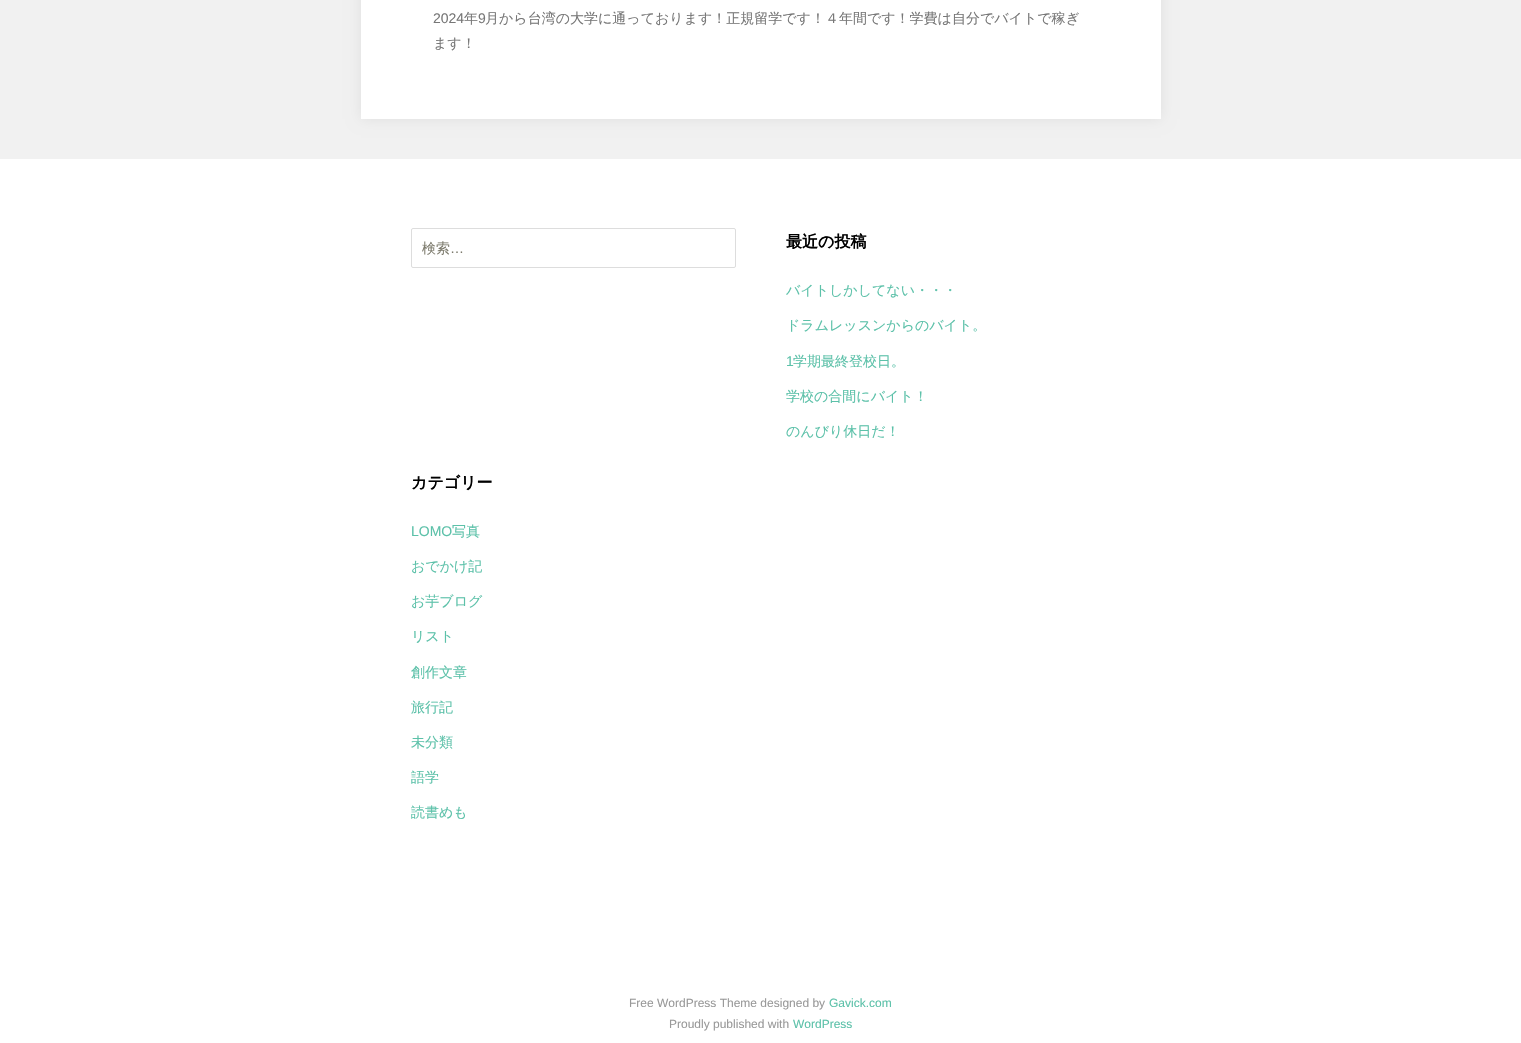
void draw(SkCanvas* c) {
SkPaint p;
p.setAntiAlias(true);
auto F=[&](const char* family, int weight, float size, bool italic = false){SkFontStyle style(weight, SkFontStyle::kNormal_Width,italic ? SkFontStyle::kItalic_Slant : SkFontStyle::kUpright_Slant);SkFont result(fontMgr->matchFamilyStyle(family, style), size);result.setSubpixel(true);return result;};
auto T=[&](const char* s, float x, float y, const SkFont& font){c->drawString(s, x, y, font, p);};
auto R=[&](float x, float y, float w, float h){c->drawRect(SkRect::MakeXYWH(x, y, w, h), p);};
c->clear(0xffffffff);
p.setColor(0xfff1f1f1);
R(0,0,1521,159);
p.setColor(0x12000000);
p.setMaskFilter(SkMaskFilter::MakeBlur(kNormal_SkBlurStyle, 6.5));
c->drawRect(SkRect::MakeXYWH(361,-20,800,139),p);
p.setMaskFilter(nullptr);
p.setColor(0xffffffff);
R(361,0,800,119);
auto f1 = F("Liberation Sans",400,14);
p.setColor(0xff777777);
T("2024",433,23,f1);
auto f2 = F("WenQuanYi Zen Hei",500,14);
T("年",464,23,f2);
T("9",478,23,f1);
T("月から台湾の大学に通っております！正規留学です！４年間です！学費は自分でバイトで稼ぎ",485,23,f2);
T("ます！",433,48,f2);
p.setStroke(true);
p.setStrokeWidth(1);
p.setColor(0xffdddddd);
c->drawRoundRect(SkRect::MakeXYWH(411.5,228.5,324,39),1.5,1.5,p);
p.setStroke(false);
p.setColor(0xff7d7b6d);
T("検索",422,253,f2);
T("…",450,253,f1);
auto f3 = F("WenQuanYi Zen Hei",700,16);
p.setColor(0xff000000);
T("最近の投稿",786,247,f3);
p.setColor(0xff5cc1a9);
T("バイトしかしてない・・・",786,295,f2);
T("ドラムレッスンからのバイト。",786,330,f2);
T("1",786,366,f1);
T("学期最終登校日。",793,366,f2);
T("学校の合間にバイト！",786,401,f2);
T("のんびり休日だ！",786,436,f2);
p.setColor(0xff000000);
T("カテゴリー",411,488,f3);
p.setColor(0xff5cc1a9);
T("LOMO",411,536,f1);
T("写真",452,536,f2);
T("おでかけ記",411,571,f2);
T("お芋ブログ",411,606,f2);
T("リスト",411,641,f2);
T("創作文章",411,677,f2);
T("旅行記",411,712,f2);
T("未分類",411,747,f2);
T("語学",411,782,f2);
T("読書めも",411,817,f2);
auto f4 = F("Liberation Sans",400,12);
p.setColor(0xff999999);
T("Free WordPress Theme designed by",629,1007,f4);
p.setColor(0xff5cc1a9);
T("Gavick.com",829,1007,f4);
p.setColor(0xff999999);
T("Proudly published with",669,1028,f4);
p.setColor(0xff5cc1a9);
T("WordPress",793,1028,f4);
}
